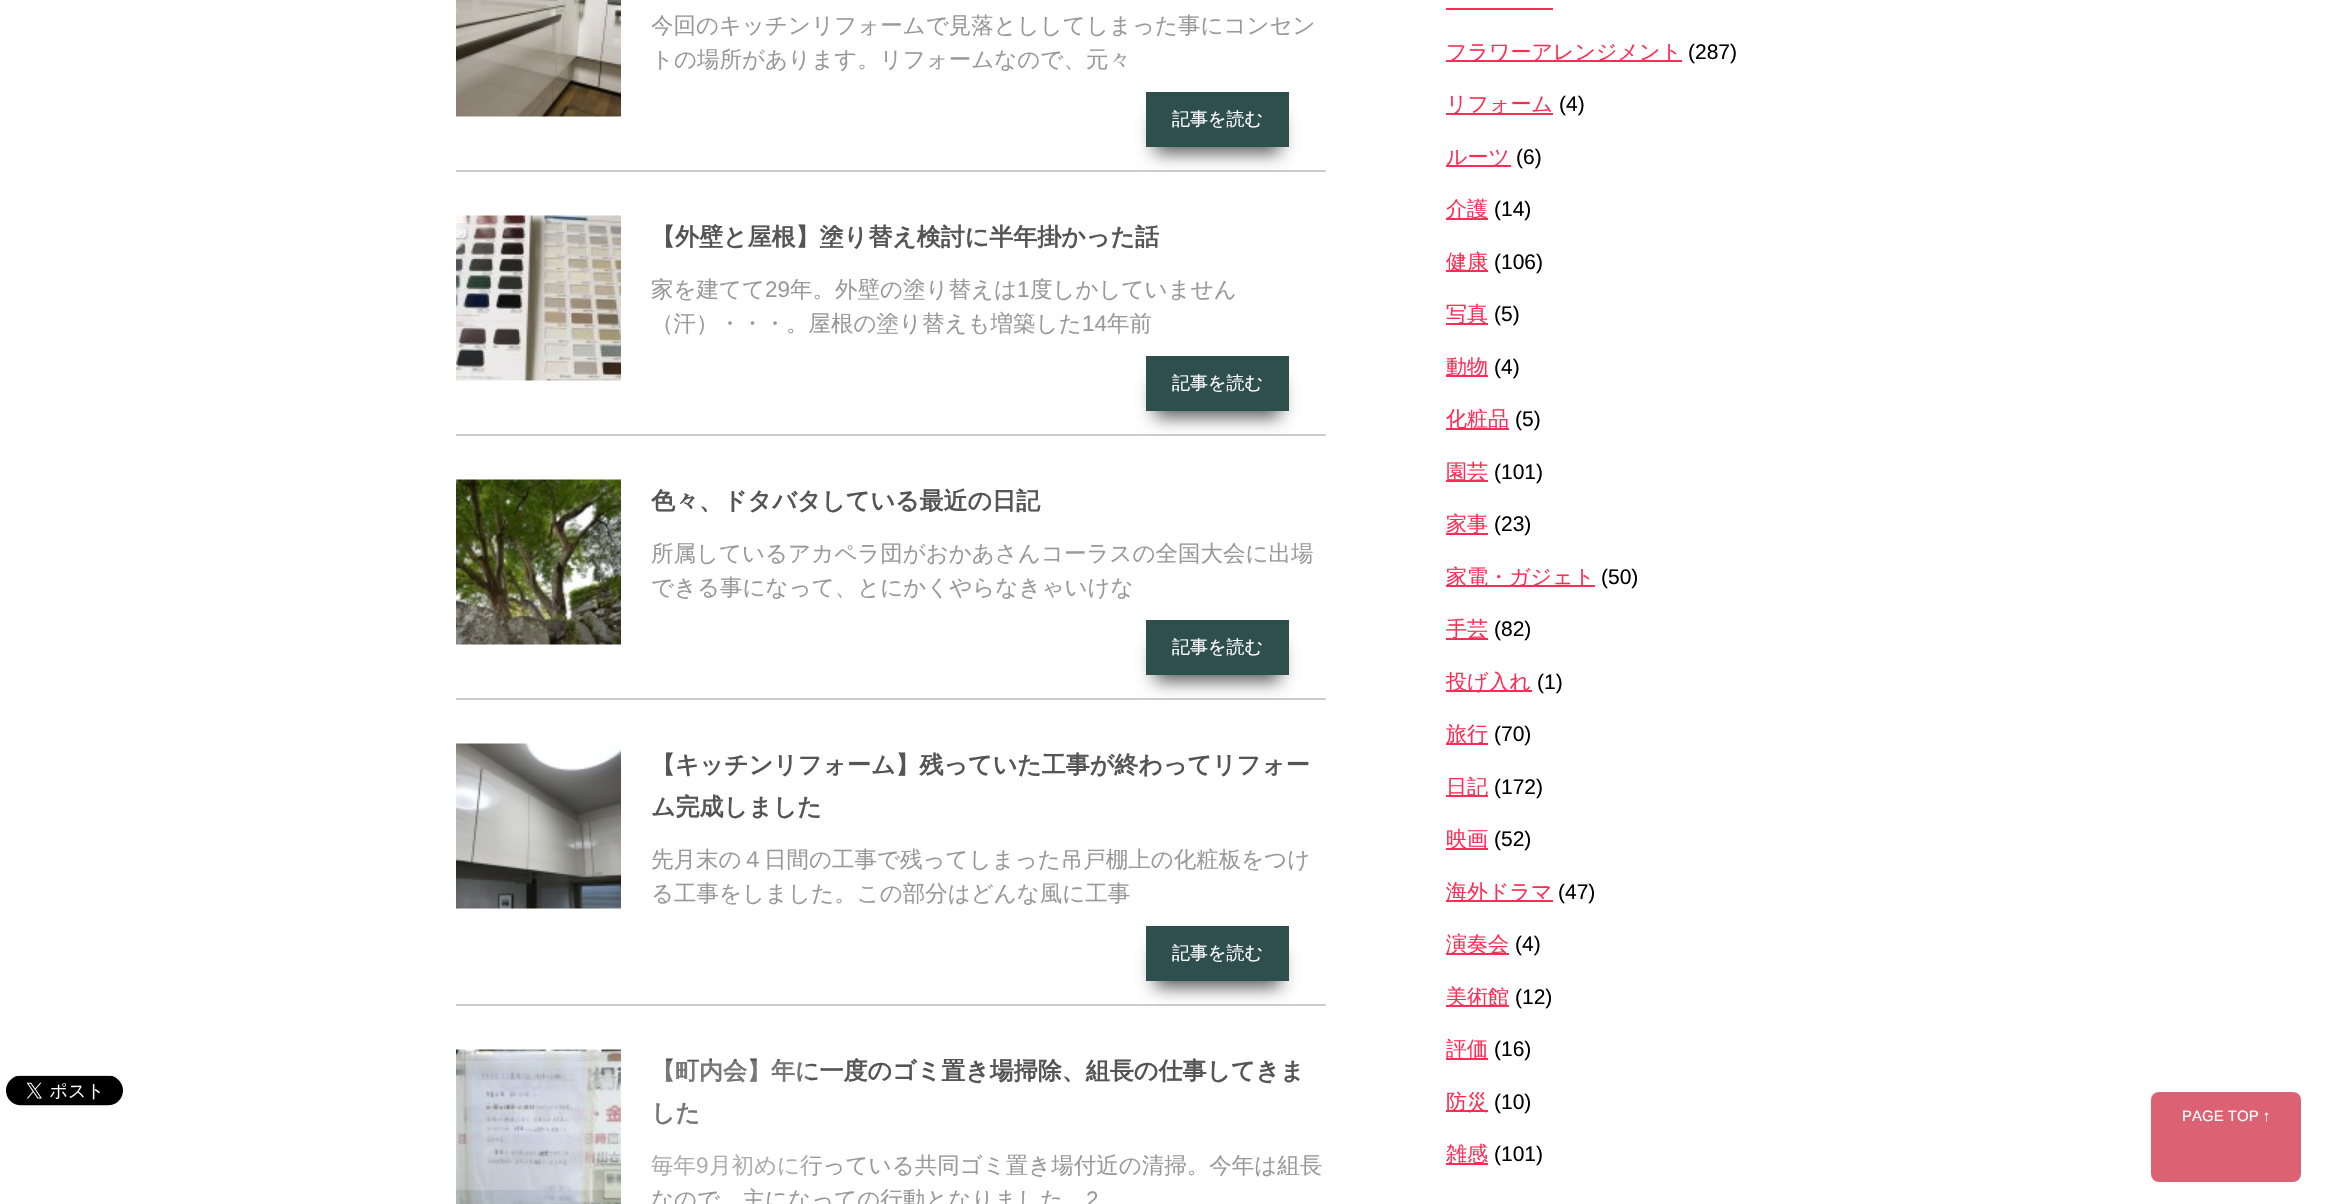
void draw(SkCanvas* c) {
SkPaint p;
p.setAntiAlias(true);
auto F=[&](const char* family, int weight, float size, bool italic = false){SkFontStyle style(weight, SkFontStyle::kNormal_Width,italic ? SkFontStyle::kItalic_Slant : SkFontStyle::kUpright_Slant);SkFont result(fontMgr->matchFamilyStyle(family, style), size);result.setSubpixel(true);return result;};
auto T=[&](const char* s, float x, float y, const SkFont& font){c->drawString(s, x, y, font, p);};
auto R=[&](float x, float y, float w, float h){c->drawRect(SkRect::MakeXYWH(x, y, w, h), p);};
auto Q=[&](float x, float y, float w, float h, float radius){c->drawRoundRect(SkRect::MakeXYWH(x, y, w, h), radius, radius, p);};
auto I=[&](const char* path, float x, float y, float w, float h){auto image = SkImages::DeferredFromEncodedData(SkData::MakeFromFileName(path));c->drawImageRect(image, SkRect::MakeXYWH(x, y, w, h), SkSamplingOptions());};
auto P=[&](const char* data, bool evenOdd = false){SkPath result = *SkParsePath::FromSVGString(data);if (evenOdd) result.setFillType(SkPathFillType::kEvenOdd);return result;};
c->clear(0xffffffff);
I("6.png",456,1049,165,155);
auto f1 = F("WenQuanYi Zen Hei",700,24);
p.setColor(0xff555555);
T("【町内会】年に一度のゴミ置き場掃除、組長の仕事してきま",651,1079,f1);
T("した",651,1121,f1);
auto f2 = F("WenQuanYi Zen Hei",500,22.5);
p.setColor(0xff999999);
T("毎年",651,1173,f2);
auto f3 = F("Liberation Sans",400,22.5);
T("9",696,1173,f3);
T("月初めに行っている共同ゴミ置き場付近の清掃。今年は組長",709,1173,f2);
T("なので、主になっての行動となりました",651,1207,f2);
p.setColor(0x33ffffff);
c->drawPath(P("M-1 1061h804c3.5 0 6 2.5 6 6v117c0 3.5-2.5 6-6 6h-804z"),p);
I("1.png",6,1075,117,31);
I("2.png",456,0,165,117);
p.setColor(0xffcccccc);
R(456,170,870,2);
p.setColor(0xff999999);
T("今回のキッチンリフォームで見落とししてしまった事にコンセン",651,33,f2);
T("トの場所があります。リフォームなので、元々",651,67,f2);
p.setColor(0xff555555);
p.setMaskFilter(SkMaskFilter::MakeBlur(kNormal_SkBlurStyle, 9));
c->drawRect(SkRect::MakeXYWH(1155,116,125,37),p);
p.setMaskFilter(nullptr);
p.setColor(0xff2f4f4f);
R(1146,92,143,55);
auto f4 = F("WenQuanYi Zen Hei",500,18);
p.setColor(0xffffffff);
T("記事を読む",1172,125,f4);
I("3.png",456,215,165,166);
p.setColor(0xffcccccc);
R(456,434,870,2);
p.setColor(0xff555555);
T("【外壁と屋根】塗り替え検討に半年掛かった話",651,245,f1);
p.setColor(0xff999999);
T("家を建てて",651,297,f2);
T("29",765,297,f3);
T("年。外壁の塗り替えは",790,297,f2);
T("1",1017,297,f3);
T("度しかしていません",1030,297,f2);
T("（汗）・・・。屋根の塗り替えも増築した",651,331,f2);
T("14",1082,331,f3);
T("年前",1107,331,f2);
p.setColor(0xff555555);
p.setMaskFilter(SkMaskFilter::MakeBlur(kNormal_SkBlurStyle, 9));
c->drawRect(SkRect::MakeXYWH(1155,380,125,37),p);
p.setMaskFilter(nullptr);
p.setColor(0xff2f4f4f);
R(1146,356,143,55);
p.setColor(0xffffffff);
T("記事を読む",1172,389,f4);
I("4.png",456,479,165,166);
p.setColor(0xffcccccc);
R(456,698,870,2);
p.setColor(0xff555555);
T("色々、ドタバタしている最近の日記",651,509,f1);
p.setColor(0xff999999);
T("所属しているアカペラ団がおかあさんコーラスの全国大会に出場",651,561,f2);
T("できる事になって、とにかくやらなきゃいけな",651,595,f2);
p.setColor(0xff555555);
p.setMaskFilter(SkMaskFilter::MakeBlur(kNormal_SkBlurStyle, 9));
c->drawRect(SkRect::MakeXYWH(1155,644,125,37),p);
p.setMaskFilter(nullptr);
p.setColor(0xff2f4f4f);
R(1146,620,143,55);
p.setColor(0xffffffff);
T("記事を読む",1172,653,f4);
I("5.png",456,743,165,166);
p.setColor(0xffcccccc);
R(456,1004,870,2);
p.setColor(0xff555555);
T("【キッチンリフォーム】残っていた工事が終わってリフォー",651,773,f1);
T("ム完成しました",651,815,f1);
p.setColor(0xff999999);
T("先月末の４日間の工事で残ってしまった吊戸棚上の化粧板をつけ",651,867,f2);
T("る工事をしました。この部分はどんな風に工事",651,901,f2);
p.setColor(0xff555555);
p.setMaskFilter(SkMaskFilter::MakeBlur(kNormal_SkBlurStyle, 9));
c->drawRect(SkRect::MakeXYWH(1155,950,125,37),p);
p.setMaskFilter(nullptr);
p.setColor(0xff2f4f4f);
R(1146,926,143,55);
p.setColor(0xffffffff);
T("記事を読む",1172,959,f4);
p.setColor(0xff999999);
T("2",1086,1207,f3);
p.setColor(0xffff2d55);
R(1446,8,107,2);
R(1446,60,236,2);
auto f5 = F("WenQuanYi Zen Hei",500,21);
T("フラワーアレンジメント",1446,59,f5);
auto f6 = F("Liberation Sans",400,21);
p.setColor(0xff000000);
T("(287)",1688,59,f6);
p.setColor(0xffff2d55);
R(1446,113,107,2);
T("リフォーム",1446,111,f5);
p.setColor(0xff000000);
T("(4)",1559,111,f6);
p.setColor(0xffff2d55);
R(1446,165,65,2);
T("ルーツ",1446,164,f5);
p.setColor(0xff000000);
T("(6)",1516,164,f6);
p.setColor(0xffff2d55);
R(1446,218,42,2);
T("介護",1446,216,f5);
p.setColor(0xff000000);
T("(14)",1494,216,f6);
p.setColor(0xffff2d55);
R(1446,270,42,2);
T("健康",1446,269,f5);
p.setColor(0xff000000);
T("(106)",1494,269,f6);
p.setColor(0xffff2d55);
R(1446,323,42,2);
T("写真",1446,321,f5);
p.setColor(0xff000000);
T("(5)",1494,321,f6);
p.setColor(0xffff2d55);
R(1446,375,42,2);
T("動物",1446,374,f5);
p.setColor(0xff000000);
T("(4)",1494,374,f6);
p.setColor(0xffff2d55);
R(1446,428,63,2);
T("化粧品",1446,426,f5);
p.setColor(0xff000000);
T("(5)",1515,426,f6);
p.setColor(0xffff2d55);
R(1446,480,42,2);
T("園芸",1446,479,f5);
p.setColor(0xff000000);
T("(101)",1494,479,f6);
p.setColor(0xffff2d55);
R(1446,533,42,2);
T("家事",1446,531,f5);
p.setColor(0xff000000);
T("(23)",1494,531,f6);
p.setColor(0xffff2d55);
R(1446,585,149,2);
T("家電・ガジェト",1446,584,f5);
p.setColor(0xff000000);
T("(50)",1601,584,f6);
p.setColor(0xffff2d55);
R(1446,638,42,2);
T("手芸",1446,636,f5);
p.setColor(0xff000000);
T("(82)",1494,636,f6);
p.setColor(0xffff2d55);
R(1446,690,86,2);
T("投げ入れ",1446,689,f5);
p.setColor(0xff000000);
T("(1)",1537,689,f6);
p.setColor(0xffff2d55);
R(1446,743,42,2);
T("旅行",1446,741,f5);
p.setColor(0xff000000);
T("(70)",1494,741,f6);
p.setColor(0xffff2d55);
R(1446,795,42,2);
T("日記",1446,794,f5);
p.setColor(0xff000000);
T("(172)",1494,794,f6);
p.setColor(0xffff2d55);
R(1446,848,42,2);
T("映画",1446,846,f5);
p.setColor(0xff000000);
T("(52)",1494,846,f6);
p.setColor(0xffff2d55);
R(1446,900,107,2);
T("海外ドラマ",1446,899,f5);
p.setColor(0xff000000);
T("(47)",1558,899,f6);
p.setColor(0xffff2d55);
R(1446,953,63,2);
T("演奏会",1446,951,f5);
p.setColor(0xff000000);
T("(4)",1515,951,f6);
p.setColor(0xffff2d55);
R(1446,1005,63,2);
T("美術館",1446,1004,f5);
p.setColor(0xff000000);
T("(12)",1515,1004,f6);
p.setColor(0xffff2d55);
R(1446,1058,42,2);
T("評価",1446,1056,f5);
p.setColor(0xff000000);
T("(16)",1494,1056,f6);
p.setColor(0xffff2d55);
R(1446,1110,42,2);
T("防災",1446,1109,f5);
p.setColor(0xff000000);
T("(10)",1494,1109,f6);
p.setColor(0xffff2d55);
R(1446,1163,42,2);
T("雑感",1446,1161,f5);
p.setColor(0xff000000);
T("(101)",1494,1161,f6);
p.setColor(0xffda6272);
Q(2151,1092,150,90,8);
auto f7 = F("Liberation Sans",400,15);
p.setColor(0xffffffff);
T("PAGE TOP ↑",2182,1121,f7);
}
